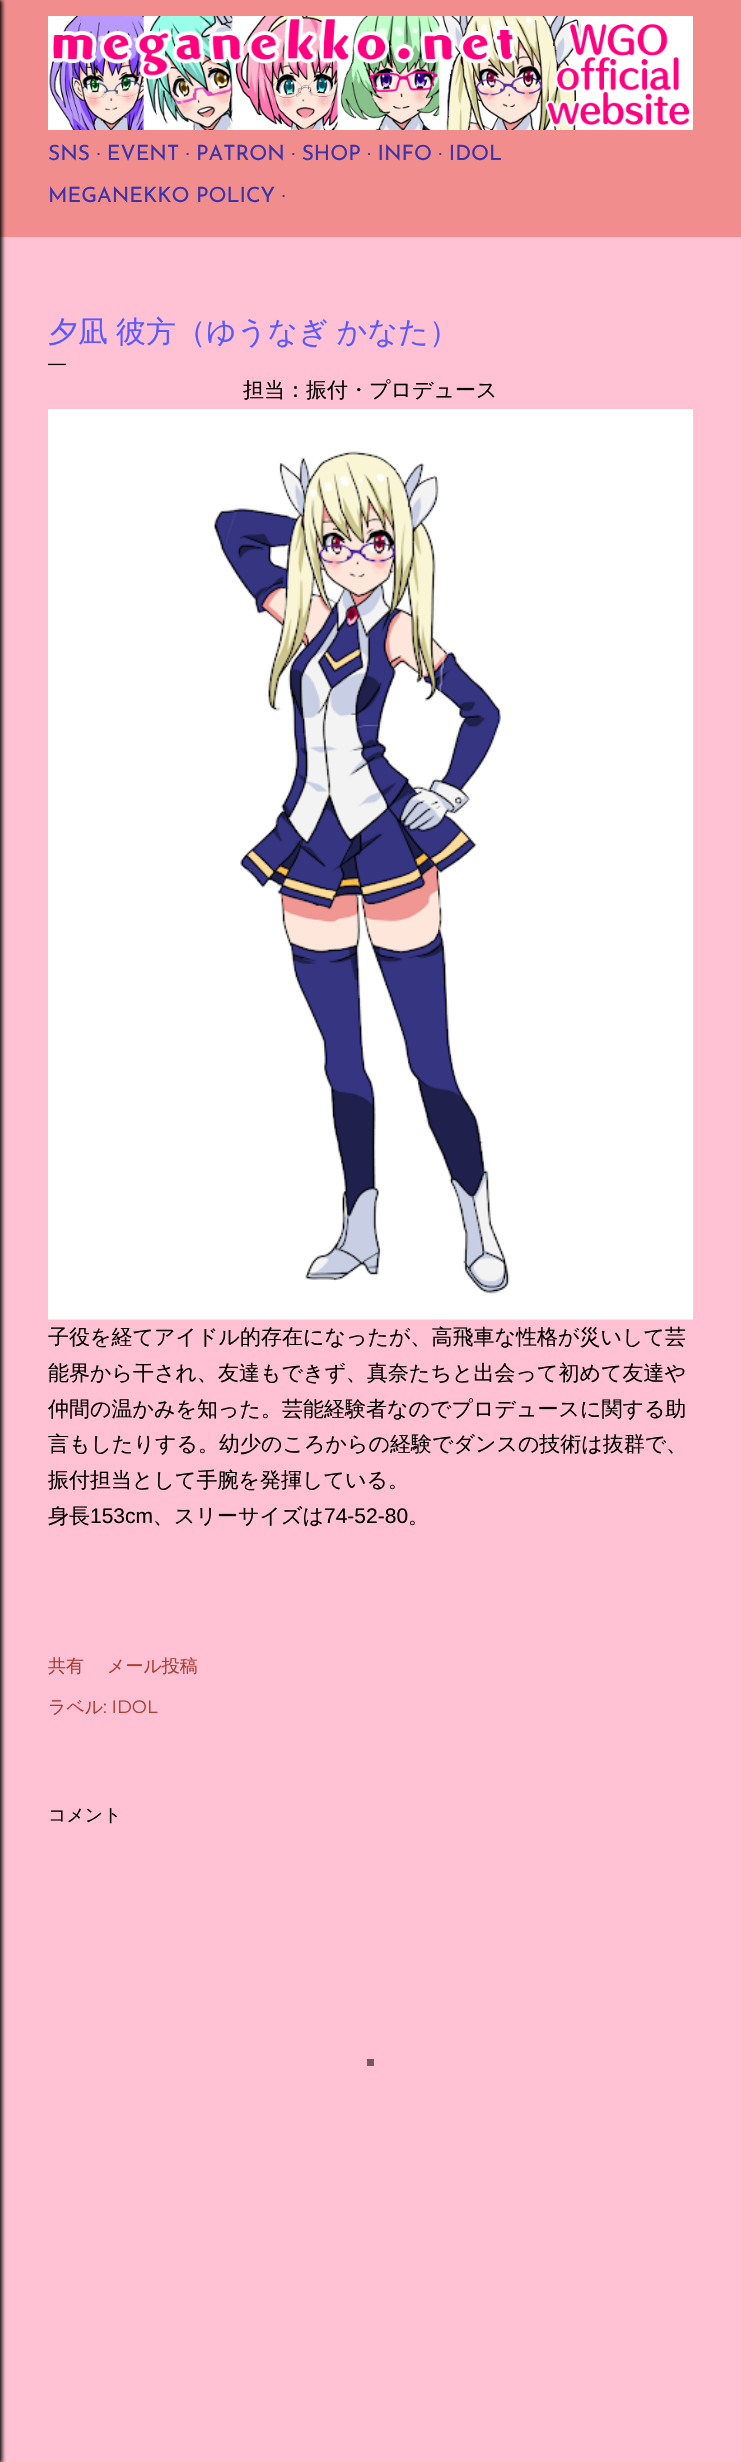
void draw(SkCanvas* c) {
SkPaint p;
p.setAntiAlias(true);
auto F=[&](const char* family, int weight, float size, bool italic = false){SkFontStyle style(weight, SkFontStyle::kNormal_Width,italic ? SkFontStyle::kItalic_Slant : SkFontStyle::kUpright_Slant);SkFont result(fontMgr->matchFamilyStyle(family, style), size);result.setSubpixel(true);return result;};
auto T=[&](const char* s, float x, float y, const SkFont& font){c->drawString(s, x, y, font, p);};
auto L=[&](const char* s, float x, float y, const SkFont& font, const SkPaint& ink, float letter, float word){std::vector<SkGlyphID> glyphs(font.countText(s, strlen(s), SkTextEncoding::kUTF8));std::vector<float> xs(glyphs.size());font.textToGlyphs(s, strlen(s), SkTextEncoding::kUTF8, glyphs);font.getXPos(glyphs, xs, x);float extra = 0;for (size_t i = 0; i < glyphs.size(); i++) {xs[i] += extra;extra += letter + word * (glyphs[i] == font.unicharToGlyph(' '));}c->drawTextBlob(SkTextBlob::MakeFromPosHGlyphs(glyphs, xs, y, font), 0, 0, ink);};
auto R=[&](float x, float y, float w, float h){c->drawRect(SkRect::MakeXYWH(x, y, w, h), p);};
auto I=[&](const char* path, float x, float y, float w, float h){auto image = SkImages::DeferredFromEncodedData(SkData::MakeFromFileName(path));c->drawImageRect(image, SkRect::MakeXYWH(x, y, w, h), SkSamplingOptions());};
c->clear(0xffffc1d3);
p.setColor(0xfff28d8d);
R(0,0,741,237);
p.setColor(0xff000000);
p.setMaskFilter(SkMaskFilter::MakeBlur(kNormal_SkBlurStyle, 2));
c->drawRect(SkRect::MakeXYWH(-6,0,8,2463),p);
p.setMaskFilter(nullptr);
I("1.png",48,16,645,114);
auto f1 = F("Josefin Sans",100,21);
p.setColor(0xff3d33a9);
T("SNS · EVENT · PATRON · SHOP · INFO · IDOL",48,160,f1);
T("MEGANEKKO POLICY ·",48,202,f1);
auto f2 = F("WenQuanYi Zen Hei",500,30);
p.setColor(0xff5959ff);
L("夕凪 彼方（ゆうなぎ かなた）",48,342,f2,p,0,-1);
auto f3 = F("Liberation Sans",400,18);
p.setColor(0xff000000);
T("—",48,369,f3);
auto f4 = F("WenQuanYi Zen Hei",500,21);
T("担当：振付・プロデュース",243,397,f4);
I("2.png",48,409,645,911);
T("子役を経てアイドル的存在になったが、高飛車な性格が災いして芸",48,1344,f4);
T("能界から干され、友達もできず、真奈たちと出会って初めて友達や",48,1380,f4);
T("仲間の温かみを知った。芸能経験者なのでプロデュースに関する助",48,1416,f4);
T("言もしたりする。幼少のころからの経験でダンスの技術は抜群で、",48,1451,f4);
T("振付担当として手腕を発揮している。",48,1487,f4);
T("身長",48,1523,f4);
auto f5 = F("Liberation Sans",400,21);
T("153cm",90,1523,f5);
T("、スリーサイズは",153,1523,f4);
T("74-52-80",324,1523,f5);
T("。",408,1523,f4);
auto f6 = F("WenQuanYi Zen Hei",500,18);
p.setColor(0xffa93e33);
T("共有",48,1672,f6);
T("メール投稿",107,1672,f6);
T("ラベル",48,1713,f6);
auto f7 = F("Montserrat",400,18);
T(": IDOL",103,1713,f7);
p.setColor(0xff000000);
T("コメント",48,1821,f6);
p.setColor(0xff755961);
R(367,2059,7,7);
}
